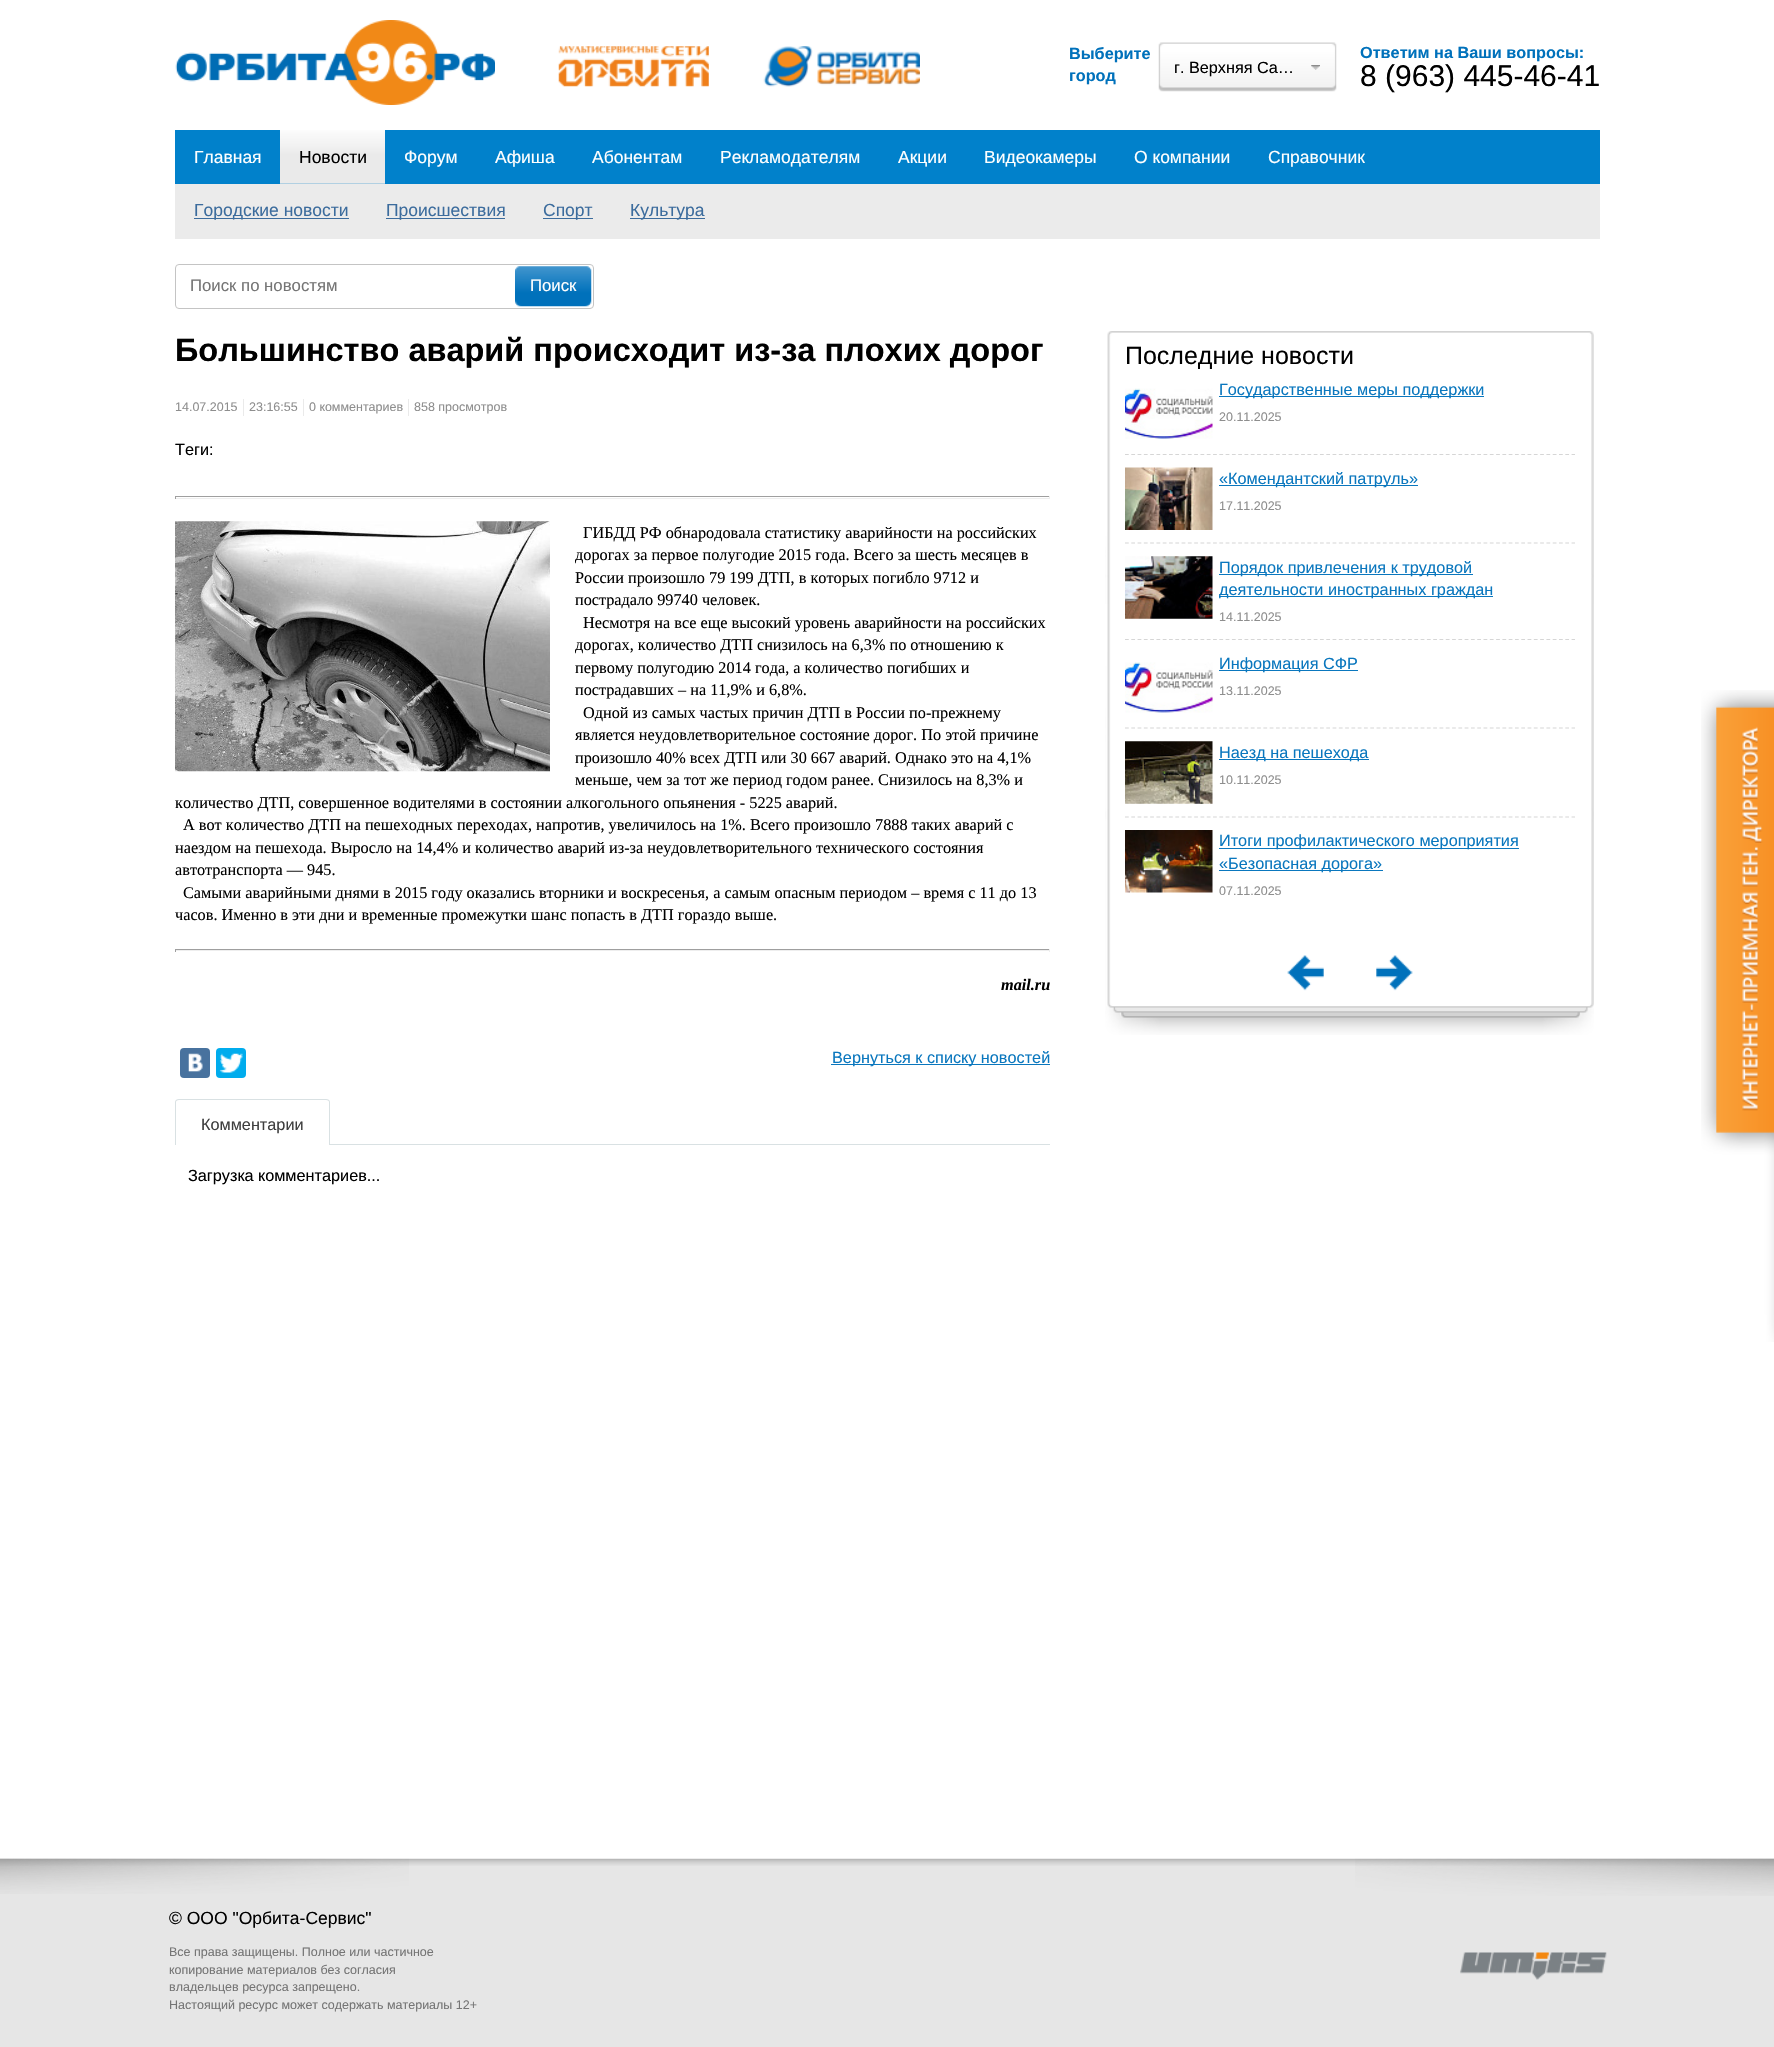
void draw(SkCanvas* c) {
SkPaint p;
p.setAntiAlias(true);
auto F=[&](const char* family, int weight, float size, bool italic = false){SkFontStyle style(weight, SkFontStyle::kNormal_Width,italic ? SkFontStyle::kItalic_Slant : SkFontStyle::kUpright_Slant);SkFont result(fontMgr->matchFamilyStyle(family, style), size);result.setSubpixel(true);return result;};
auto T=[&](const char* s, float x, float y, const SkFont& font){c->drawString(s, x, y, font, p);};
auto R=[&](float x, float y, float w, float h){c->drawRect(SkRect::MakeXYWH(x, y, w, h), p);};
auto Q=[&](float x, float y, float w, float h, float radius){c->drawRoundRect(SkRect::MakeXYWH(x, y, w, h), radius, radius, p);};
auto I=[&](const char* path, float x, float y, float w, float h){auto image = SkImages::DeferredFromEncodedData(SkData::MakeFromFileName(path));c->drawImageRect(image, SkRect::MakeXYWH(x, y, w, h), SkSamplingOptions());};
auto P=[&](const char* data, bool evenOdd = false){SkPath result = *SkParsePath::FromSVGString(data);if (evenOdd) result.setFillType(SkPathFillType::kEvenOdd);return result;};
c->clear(0xffffffff);
I("1.png",175,20,320,85);
I("2.png",558,46,151,41);
I("3.png",763,46,157,41);
auto f1 = F("Liberation Sans",700,16.25);
p.setColor(0xff0071bb);
T("Выберите",1069,59,f1);
T("город",1069,81,f1);
I("4.png",1158,42,179,50);
auto f2 = F("Liberation Sans",400,16.25);
p.setColor(0xff000000);
T("г. Верхняя Са…",1174,73,f2);
I("5.png",1311,65,9,5);
p.setColor(0xff0071bb);
T("Ответим на Ваши вопросы:",1360,58,f1);
auto f3 = F("Liberation Sans",400,30);
p.setColor(0xff000000);
T("8 (963) 445-46-41",1360,86,f3);
p.setColor(0xff0181cb);
R(175,130,1425,54);
auto f4 = F("Liberation Sans",400,17.5);
p.setColor(0xffffffff);
T("Главная",194,163,f4);
I("6.png",280,130,105,54);
p.setColor(0xff000000);
T("Новости",299,163,f4);
p.setColor(0xffebebeb);
R(175,184,1425,55);
p.setColor(0xff3c6c9d);
R(194,218,155,1);
T("Городские новости",194,216,f4);
R(386,218,119,1);
T("Происшествия",386,216,f4);
R(543,218,50,1);
T("Спорт",543,216,f4);
R(630,218,75,1);
T("Культура",630,216,f4);
p.setColor(0xffffffff);
T("Форум",404,163,f4);
T("Афиша",495,163,f4);
T("Абонентам",592,163,f4);
T("Рекламодателям",720,163,f4);
T("Акции",898,163,f4);
T("Видеокамеры",984,163,f4);
T("О компании",1134,163,f4);
T("Справочник",1268,163,f4);
p.setStroke(true);
p.setStrokeWidth(1);
p.setColor(0xffc4c4c4);
c->drawRoundRect(SkRect::MakeXYWH(175.5,264.5,418,44),3.5,3.5,p);
auto f5 = F("Liberation Sans",400,16.75);
p.setStroke(false);
p.setColor(0xff757575);
T("Поиск по новостям",190,291,f5);
I("7.png",515,266,77,41);
p.setColor(0xffffffff);
T("Поиск",530,291,f5);
auto f6 = F("Liberation Sans",700,32.5);
p.setColor(0xff000000);
T("Большинство аварий происходит из-за плохих дорог",175,361,f6);
auto f7 = F("Liberation Sans",400,12.5);
p.setColor(0xff8e8e8e);
T("14.07.2015",175,411,f7);
p.setColor(0xffeaeaea);
R(243,399,1,17);
p.setColor(0xff8e8e8e);
T("23:16:55",249,411,f7);
p.setColor(0xffeaeaea);
R(303,399,1,17);
p.setColor(0xff8e8e8e);
T("0 комментариев",309,411,f7);
p.setColor(0xffeaeaea);
R(408,399,1,17);
p.setColor(0xff8e8e8e);
T("858 просмотров",414,411,f7);
p.setColor(0xff000000);
T("Теги:",175,455,f2);
p.setColor(0xff9f9f9f);
R(175,496,875,1);
p.setColor(0xffeeeeee);
R(1049,496,1,3);
R(175,498,875,1);
p.setColor(0xff9f9f9f);
R(175,496,1,3);
I("8.png",175,521,375,251);
auto f8 = F("Liberation Serif",400,16.25);
p.setColor(0xff000000);
T("ГИБДД РФ обнародовала статистику аварийности на российских",583,538,f8);
T("дорогах за первое полугодие 2015 года. Всего за шесть месяцев в",575,560,f8);
T("России произошло 79 199 ДТП, в которых погибло 9712 и",575,583,f8);
T("пострадало 99740 человек.",575,605,f8);
T("Несмотря на все еще высокий уровень аварийности на российских",583,628,f8);
T("дорогах, количество ДТП снизилось на 6,3% по отношению к",575,650,f8);
T("первому полугодию 2014 года, а количество погибших и",575,673,f8);
T("пострадавших – на 11,9% и 6,8%.",575,695,f8);
T("Одной из самых частых причин ДТП в России по-прежнему",583,718,f8);
T("является неудовлетворительное состояние дорог. По этой причине",575,740,f8);
T("произошло 40% всех ДТП или 30 667 аварий. Однако это на 4,1%",575,763,f8);
T("меньше, чем за тот же период годом ранее. Снизилось на 8,3% и",575,785,f8);
T("количество ДТП, совершенное водителями в состоянии алкогольного опьянения - 5225 аварий.",175,808,f8);
T("А вот количество ДТП на пешеходных переходах, напротив, увеличилось на 1%. Всего произошло 7888 таких аварий с",183,830,f8);
T("наездом на пешехода. Выросло на 14,4% и количество аварий из-за неудовлетворительного технического состояния",175,853,f8);
T("автотранспорта — 945.",175,875,f8);
T("Самыми аварийными днями в 2015 году оказались вторники и воскресенья, а самым опасным периодом – время с 11 до 13",183,898,f8);
T("часов. Именно в эти дни и временные промежутки шанс попасть в ДТП гораздо выше.",175,920,f8);
p.setColor(0xff9f9f9f);
R(175,949,875,1);
p.setColor(0xffeeeeee);
R(1049,949,1,3);
R(175,950,875,1);
p.setColor(0xff9f9f9f);
R(175,949,1,3);
auto f9 = F("Liberation Serif",700,16.25,true);
p.setColor(0xff000000);
T("mail.ru",1001,990,f9);
p.setColor(0xff48729e);
Q(180,1048,30,30,4);
I("9.png",188,1053,15,19);
p.setColor(0xff00aced);
Q(216,1048,30,30,4);
I("10.png",219,1053,24,20);
p.setColor(0xff0a77be);
R(831,1064,219,1);
T("Вернуться к списку новостей",832,1063,f2);
I("11.png",1105,331,489,704);
auto f10 = F("Liberation Sans",400,25);
p.setColor(0xff000000);
T("Последние новости",1125,364,f10);
I("12.png",1125,388,88,51);
p.setColor(0xff0a77be);
R(1219,396,265,1);
T("Государственные меры поддержки",1219,395,f2);
p.setColor(0xff8e8e8e);
T("20.11.2025",1219,421,f7);
I("13.png",1125,467,88,63);
p.setStroke(true);
p.setStrokeWidth(1.2);
p.setColor(0xffd6d6d6);
p.setPathEffect(SkDashPathEffect::Make({{3.75f,2.54f}}, 0));
c->drawPath(P("M1125 454.5h450"),p);
p.setPathEffect(nullptr);
p.setStroke(false);
p.setColor(0xff0a77be);
R(1219,485,199,1);
T("«Комендантский патруль»",1219,484,f2);
p.setColor(0xff8e8e8e);
T("17.11.2025",1219,510,f7);
I("14.png",1125,556,88,63);
p.setStroke(true);
p.setColor(0xffd6d6d6);
p.setPathEffect(SkDashPathEffect::Make({{3.75f,2.54f}}, 0));
c->drawPath(P("M1125 543h450"),p);
p.setPathEffect(nullptr);
p.setStroke(false);
p.setColor(0xff0a77be);
R(1219,574,254,1);
T("Порядок привлечения к трудовой",1219,573,f2);
R(1219,596,274,1);
T("деятельности иностранных граждан",1219,595,f2);
p.setColor(0xff8e8e8e);
T("14.11.2025",1219,621,f7);
I("15.png",1125,662,88,51);
p.setStroke(true);
p.setColor(0xffd6d6d6);
p.setPathEffect(SkDashPathEffect::Make({{3.75f,2.54f}}, 0));
c->drawPath(P("M1125 639.5h450"),p);
p.setPathEffect(nullptr);
p.setStroke(false);
p.setColor(0xff0a77be);
R(1219,670,139,1);
T("Информация СФР",1219,669,f2);
p.setColor(0xff8e8e8e);
T("13.11.2025",1219,695,f7);
I("16.png",1125,741,88,63);
p.setStroke(true);
p.setColor(0xffd6d6d6);
p.setPathEffect(SkDashPathEffect::Make({{3.75f,2.54f}}, 0));
c->drawPath(P("M1125 728h450"),p);
p.setPathEffect(nullptr);
p.setStroke(false);
p.setColor(0xff0a77be);
R(1219,759,150,1);
T("Наезд на пешехода",1219,758,f2);
p.setColor(0xff8e8e8e);
T("10.11.2025",1219,784,f7);
I("17.png",1125,830,88,63);
p.setStroke(true);
p.setColor(0xffd6d6d6);
p.setPathEffect(SkDashPathEffect::Make({{3.75f,2.54f}}, 0));
c->drawPath(P("M1125 817h450"),p);
p.setPathEffect(nullptr);
p.setStroke(false);
p.setColor(0xff0a77be);
R(1219,848,300,1);
T("Итоги профилактического мероприятия",1219,846,f2);
R(1219,870,164,1);
T("«Безопасная дорога»",1219,869,f2);
p.setColor(0xff8e8e8e);
T("07.11.2025",1219,895,f7);
I("18.png",1287,955,37,36);
I("19.png",1376,955,37,36);
p.setColor(0xffd9e1e3);
R(175,1144,875,1);
c->drawPath(P("M179 1099h147c2 0 4 1 4 3v42h-155v-42c0-2 2-3 4-3zm0 1h147c2 0 3 1 3 2v42h-153v-42c0-1 1-2 3-2z",true),p);
p.setColor(0xffffffff);
R(176,1144,153,1);
p.setColor(0xff3f3f3f);
T("Комментарии",201,1130,f2);
p.setColor(0xff000000);
T("Загрузка комментариев...",188,1181,f2);
I("20.png",1701,690,73,652);
p.setColor(0xffe6e6e6);
R(0,1866,1774,181);
I("21.png",0,1858,1774,8);
I("22.png",0,1858,409,36);
I("23.png",1355,1858,419,38);
p.setColor(0xff000000);
T("© ООО \"Орбита-Сервис\"",169,1924,f4);
p.setColor(0xff757575);
T("Все права защищены. Полное или частичное",169,1956,f7);
T("копирование материалов без согласия",169,1974,f7);
T("владельцев ресурса запрещено.",169,1991,f7);
T("Настоящий ресурс может содержать материалы 12+",169,2009,f7);
I("24.png",1460,1952,147,28);
}
